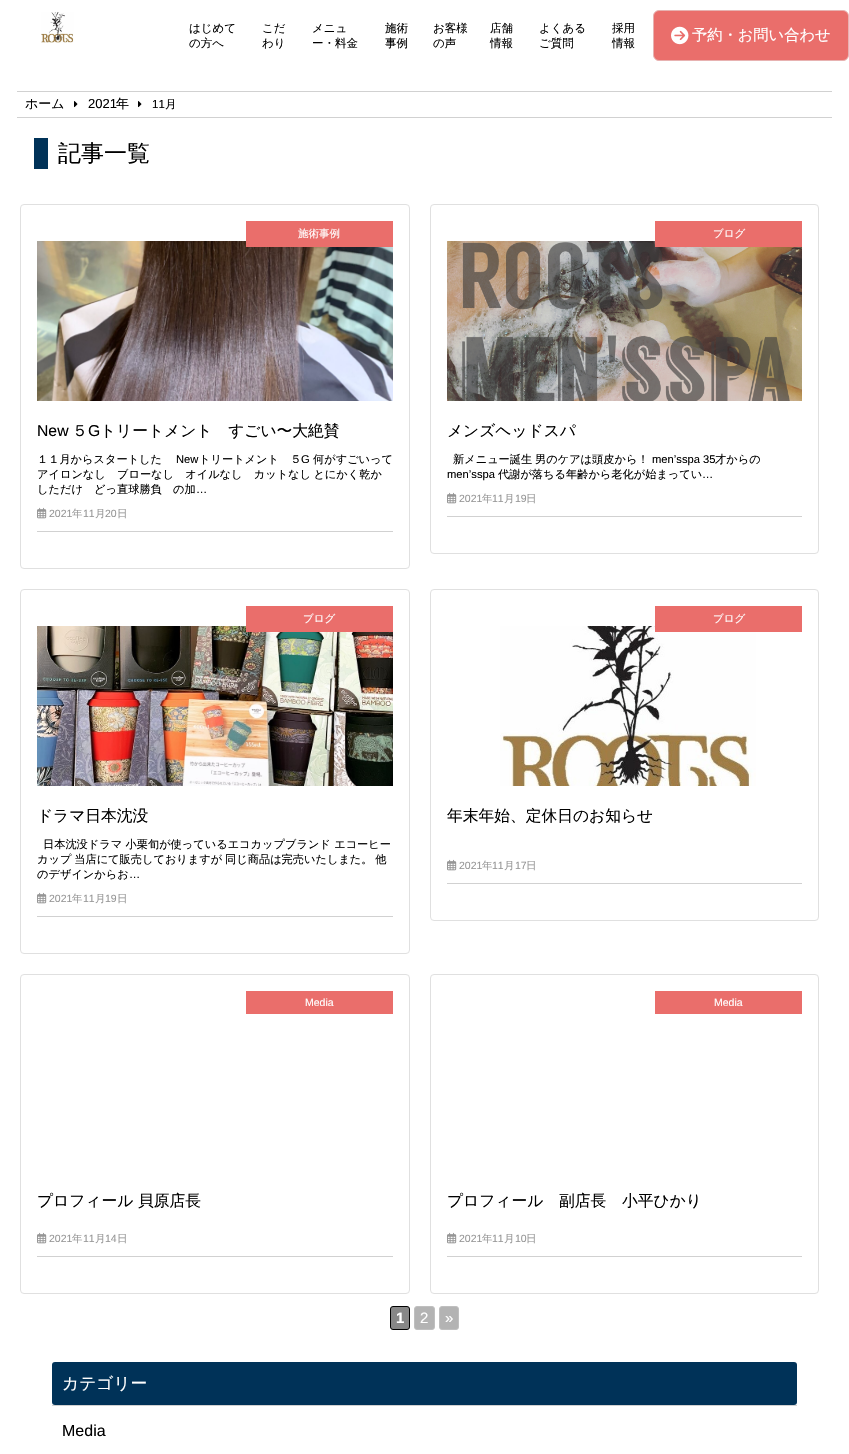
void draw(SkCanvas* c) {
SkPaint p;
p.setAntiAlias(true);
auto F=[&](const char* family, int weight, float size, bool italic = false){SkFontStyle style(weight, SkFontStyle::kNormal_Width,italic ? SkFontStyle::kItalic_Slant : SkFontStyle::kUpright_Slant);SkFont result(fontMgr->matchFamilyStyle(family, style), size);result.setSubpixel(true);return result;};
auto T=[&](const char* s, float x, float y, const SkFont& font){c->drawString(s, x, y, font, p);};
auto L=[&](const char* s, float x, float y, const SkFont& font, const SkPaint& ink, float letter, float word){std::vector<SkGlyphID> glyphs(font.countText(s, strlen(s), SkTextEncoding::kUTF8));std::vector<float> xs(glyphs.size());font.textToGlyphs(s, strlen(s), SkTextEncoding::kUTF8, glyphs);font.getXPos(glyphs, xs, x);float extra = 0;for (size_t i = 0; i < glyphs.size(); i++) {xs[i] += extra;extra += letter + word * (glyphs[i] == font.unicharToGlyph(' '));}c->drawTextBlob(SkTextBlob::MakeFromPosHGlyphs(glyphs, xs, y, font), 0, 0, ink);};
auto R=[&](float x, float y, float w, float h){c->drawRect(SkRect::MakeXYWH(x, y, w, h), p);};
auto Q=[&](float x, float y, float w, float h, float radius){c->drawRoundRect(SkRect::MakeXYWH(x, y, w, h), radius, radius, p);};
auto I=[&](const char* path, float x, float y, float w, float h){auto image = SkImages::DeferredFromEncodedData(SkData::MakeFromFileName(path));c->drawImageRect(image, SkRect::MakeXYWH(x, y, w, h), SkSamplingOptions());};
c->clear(0xffffffff);
I("1.png",41,12,33,31);
auto f1 = F("WenQuanYi Zen Hei",500,11.5);
p.setColor(0xff000000);
T("はじめて",189,32,f1);
T("の方へ",189,47,f1);
T("こだ",262,32,f1);
T("わり",262,47,f1);
T("メニュ",312,32,f1);
T("ー・料金",312,47,f1);
T("施術",385,32,f1);
T("事例",385,47,f1);
T("お客様",433,32,f1);
T("の声",433,47,f1);
T("店舗",490,32,f1);
T("情報",490,47,f1);
T("よくある",539,32,f1);
T("ご質問",539,47,f1);
T("採用",612,32,f1);
T("情報",612,47,f1);
p.setColor(0xffea6e6b);
c->drawRoundRect(SkRect::MakeXYWH(653.5,10.5,195,50),5.5,5.5,p);
p.setStroke(true);
p.setStrokeWidth(1);
p.setColor(0xffe7b2b1);
c->drawRoundRect(SkRect::MakeXYWH(653.5,10.5,195,50),5.5,5.5,p);
I("2.png",671,26,18,19);
auto f2 = F("WenQuanYi Zen Hei",500,15.25);
p.setStroke(false);
p.setColor(0xffffffff);
T("予約・お問い合わせ",692,40,f2);
p.setColor(0xffd1d1d1);
R(17,91,815,1);
R(17,117,815,1);
auto f3 = F("WenQuanYi Zen Hei",500,13);
p.setColor(0xff000000);
T("ホーム",25,108,f3);
I("3.png",74,101,4,7);
auto f4 = F("Liberation Sans",400,13);
T("2021",88,108,f4);
T("年",116,108,f3);
I("3.png",138,101,4,7);
auto f5 = F("Liberation Sans",400,11.5);
T("11",152,108,f5);
T("月",165,108,f1);
p.setColor(0xff003258);
R(34,138,14,31);
auto f6 = F("WenQuanYi Zen Hei",500,23);
p.setColor(0xff000000);
T("記事一覧",58,161,f6);
p.setStroke(true);
p.setColor(0xffe0e0e0);
c->drawRoundRect(SkRect::MakeXYWH(20.5,204.5,389,364),3.5,3.5,p);
I("4.png",37,241,356,160);
p.setStroke(false);
p.setColor(0xffea6e6b);
R(246,221,147,26);
auto f7 = F("WenQuanYi Zen Hei",500,10.5);
p.setColor(0xffffffff);
T("施術事例",298,237,f7);
auto f8 = F("Liberation Sans",400,15.75);
p.setColor(0xff000000);
T("New",37,436,f8);
auto f9 = F("WenQuanYi Zen Hei",500,15.75);
T("５",72,436,f9);
T("G",88,436,f8);
T("トリートメント　すごい〜大絶賛",100,436,f9);
auto f10 = F("WenQuanYi Zen Hei",500,11.2);
T("１１月からスタートした",37,463,f10);
auto f11 = F("Liberation Sans",400,11.2);
T("New",176,463,f11);
T("トリートメント　５",199,463,f10);
T("G",301,463,f11);
T("何がすごいって",313,463,f10);
L("アイロンなし　ブローなし　オイルなし　カットなし とにかく乾か",37,478,f10,p,0,-1);
T("しただけ　どっ直球勝負　の加",37,493,f10);
T("…",196,493,f11);
p.setColor(0xffd1d1d1);
R(37,531,356,1);
I("5.png",37,507,10,12);
auto f12 = F("Liberation Sans",400,10.5);
p.setColor(0xff969696);
T("2021",49,517,f12);
T("年",72,517,f7);
T("11",83,517,f12);
T("月",95,517,f7);
T("20",105,517,f12);
T("日",117,517,f7);
p.setStroke(true);
p.setColor(0xffe0e0e0);
c->drawRoundRect(SkRect::MakeXYWH(430.5,204.5,388,349),3.5,3.5,p);
I("6.png",447,241,355,160);
p.setStroke(false);
p.setColor(0xffea6e6b);
R(655,221,147,26);
p.setColor(0xffffffff);
T("ブログ",713,237,f7);
p.setColor(0xff000000);
T("メンズヘッドスパ",447,436,f9);
T("新メニュー誕生",453,463,f10);
T("男のケアは頭皮から！",535,463,f10);
T("men’sspa 35",652,463,f11);
T("才からの",715,463,f10);
T("men’sspa",447,478,f11);
T("代謝が落ちる年齢から老化が始まってい",498,478,f10);
T("…",702,478,f11);
p.setColor(0xffd1d1d1);
R(447,516,355,1);
I("5.png",447,492,10,12);
p.setColor(0xff969696);
T("2021",459,502,f12);
T("年",482,502,f7);
T("11",492,502,f12);
T("月",504,502,f7);
T("19",515,502,f12);
T("日",526,502,f7);
p.setStroke(true);
p.setColor(0xffe0e0e0);
c->drawRoundRect(SkRect::MakeXYWH(20.5,589.5,389,364),3.5,3.5,p);
I("7.png",37,626,356,160);
p.setStroke(false);
p.setColor(0xffea6e6b);
R(246,606,147,26);
p.setColor(0xffffffff);
T("ブログ",303,622,f7);
p.setColor(0xff000000);
T("ドラマ日本沈没",37,821,f9);
T("日本沈没ドラマ 小栗旬が使っているエコカップブランド エコーヒー",43,848,f10);
L("カップ 当店にて販売しておりますが 同じ商品は完売いたしまた。 他",37,863,f10,p,0,-.5);
T("のデザインからお",37,878,f10);
T("…",129,878,f11);
p.setColor(0xffd1d1d1);
R(37,916,356,1);
I("5.png",37,892,10,12);
p.setColor(0xff969696);
T("2021",49,902,f12);
T("年",72,902,f7);
T("11",83,902,f12);
T("月",95,902,f7);
T("19",105,902,f12);
T("日",117,902,f7);
p.setStroke(true);
p.setColor(0xffe0e0e0);
c->drawRoundRect(SkRect::MakeXYWH(430.5,589.5,388,331),3.5,3.5,p);
I("8.png",500,626,256,160);
p.setStroke(false);
p.setColor(0xffea6e6b);
R(655,606,147,26);
p.setColor(0xffffffff);
T("ブログ",713,622,f7);
p.setColor(0xff000000);
T("年末年始、定休日のお知らせ",447,821,f9);
p.setColor(0xffd1d1d1);
R(447,883,355,1);
I("5.png",447,859,10,12);
p.setColor(0xff969696);
T("2021",459,869,f12);
T("年",482,869,f7);
T("11",492,869,f12);
T("月",504,869,f7);
T("17",515,869,f12);
T("日",526,869,f7);
p.setStroke(true);
p.setColor(0xffe0e0e0);
c->drawRoundRect(SkRect::MakeXYWH(20.5,974.5,389,319),3.5,3.5,p);
p.setStroke(false);
p.setColor(0xffea6e6b);
R(246,991,147,23);
p.setColor(0xffffffff);
T("Media",305,1006,f12);
p.setColor(0xff000000);
T("プロフィール 貝原店長",37,1206,f9);
p.setColor(0xffd1d1d1);
R(37,1256,356,1);
I("5.png",37,1232,10,12);
p.setColor(0xff969696);
T("2021",49,1242,f12);
T("年",72,1242,f7);
T("11",83,1242,f12);
T("月",95,1242,f7);
T("14",105,1242,f12);
T("日",117,1242,f7);
p.setStroke(true);
p.setColor(0xffe0e0e0);
c->drawRoundRect(SkRect::MakeXYWH(430.5,974.5,388,319),3.5,3.5,p);
p.setStroke(false);
p.setColor(0xffea6e6b);
R(655,991,147,23);
p.setColor(0xffffffff);
T("Media",714,1006,f12);
p.setColor(0xff000000);
T("プロフィール　副店長　小平ひかり",447,1206,f9);
p.setColor(0xffd1d1d1);
R(447,1256,355,1);
I("5.png",447,1232,10,12);
p.setColor(0xff969696);
T("2021",459,1242,f12);
T("年",482,1242,f7);
T("11",492,1242,f12);
T("月",504,1242,f7);
T("10",515,1242,f12);
T("日",526,1242,f7);
p.setColor(0xff878787);
c->drawRoundRect(SkRect::MakeXYWH(390.5,1306.5,19,23),2.5,2.5,p);
p.setStroke(true);
p.setColor(0xff000000);
c->drawRoundRect(SkRect::MakeXYWH(390.5,1306.5,19,23),2.5,2.5,p);
auto f13 = F("Liberation Sans",700,15);
p.setStroke(false);
p.setColor(0xffffffff);
T("1",396,1323,f13);
p.setColor(0xffb3b3b3);
c->drawRoundRect(SkRect::MakeXYWH(414.5,1306.5,20,23),2.5,2.5,p);
p.setStroke(true);
p.setColor(0xffbfbfbf);
c->drawRoundRect(SkRect::MakeXYWH(414.5,1306.5,20,23),2.5,2.5,p);
auto f14 = F("Liberation Sans",400,15);
p.setStroke(false);
p.setColor(0xffffffff);
T("2",420,1323,f14);
p.setColor(0xffb3b3b3);
c->drawRoundRect(SkRect::MakeXYWH(439.5,1306.5,19,23),2.5,2.5,p);
p.setStroke(true);
p.setColor(0xffbfbfbf);
c->drawRoundRect(SkRect::MakeXYWH(439.5,1306.5,19,23),2.5,2.5,p);
p.setStroke(false);
p.setColor(0xffffffff);
T("»",445,1323,f14);
p.setColor(0xff003258);
Q(52,1362,745,43,3);
auto f15 = F("WenQuanYi Zen Hei",500,16.75);
p.setColor(0xffffffff);
T("カテゴリー",62,1389,f15);
p.setColor(0xffd1d1d1);
R(52,1405,745,1);
auto f16 = F("Liberation Sans",400,16);
p.setColor(0xff000000);
T("Media",62,1436,f16);
}
